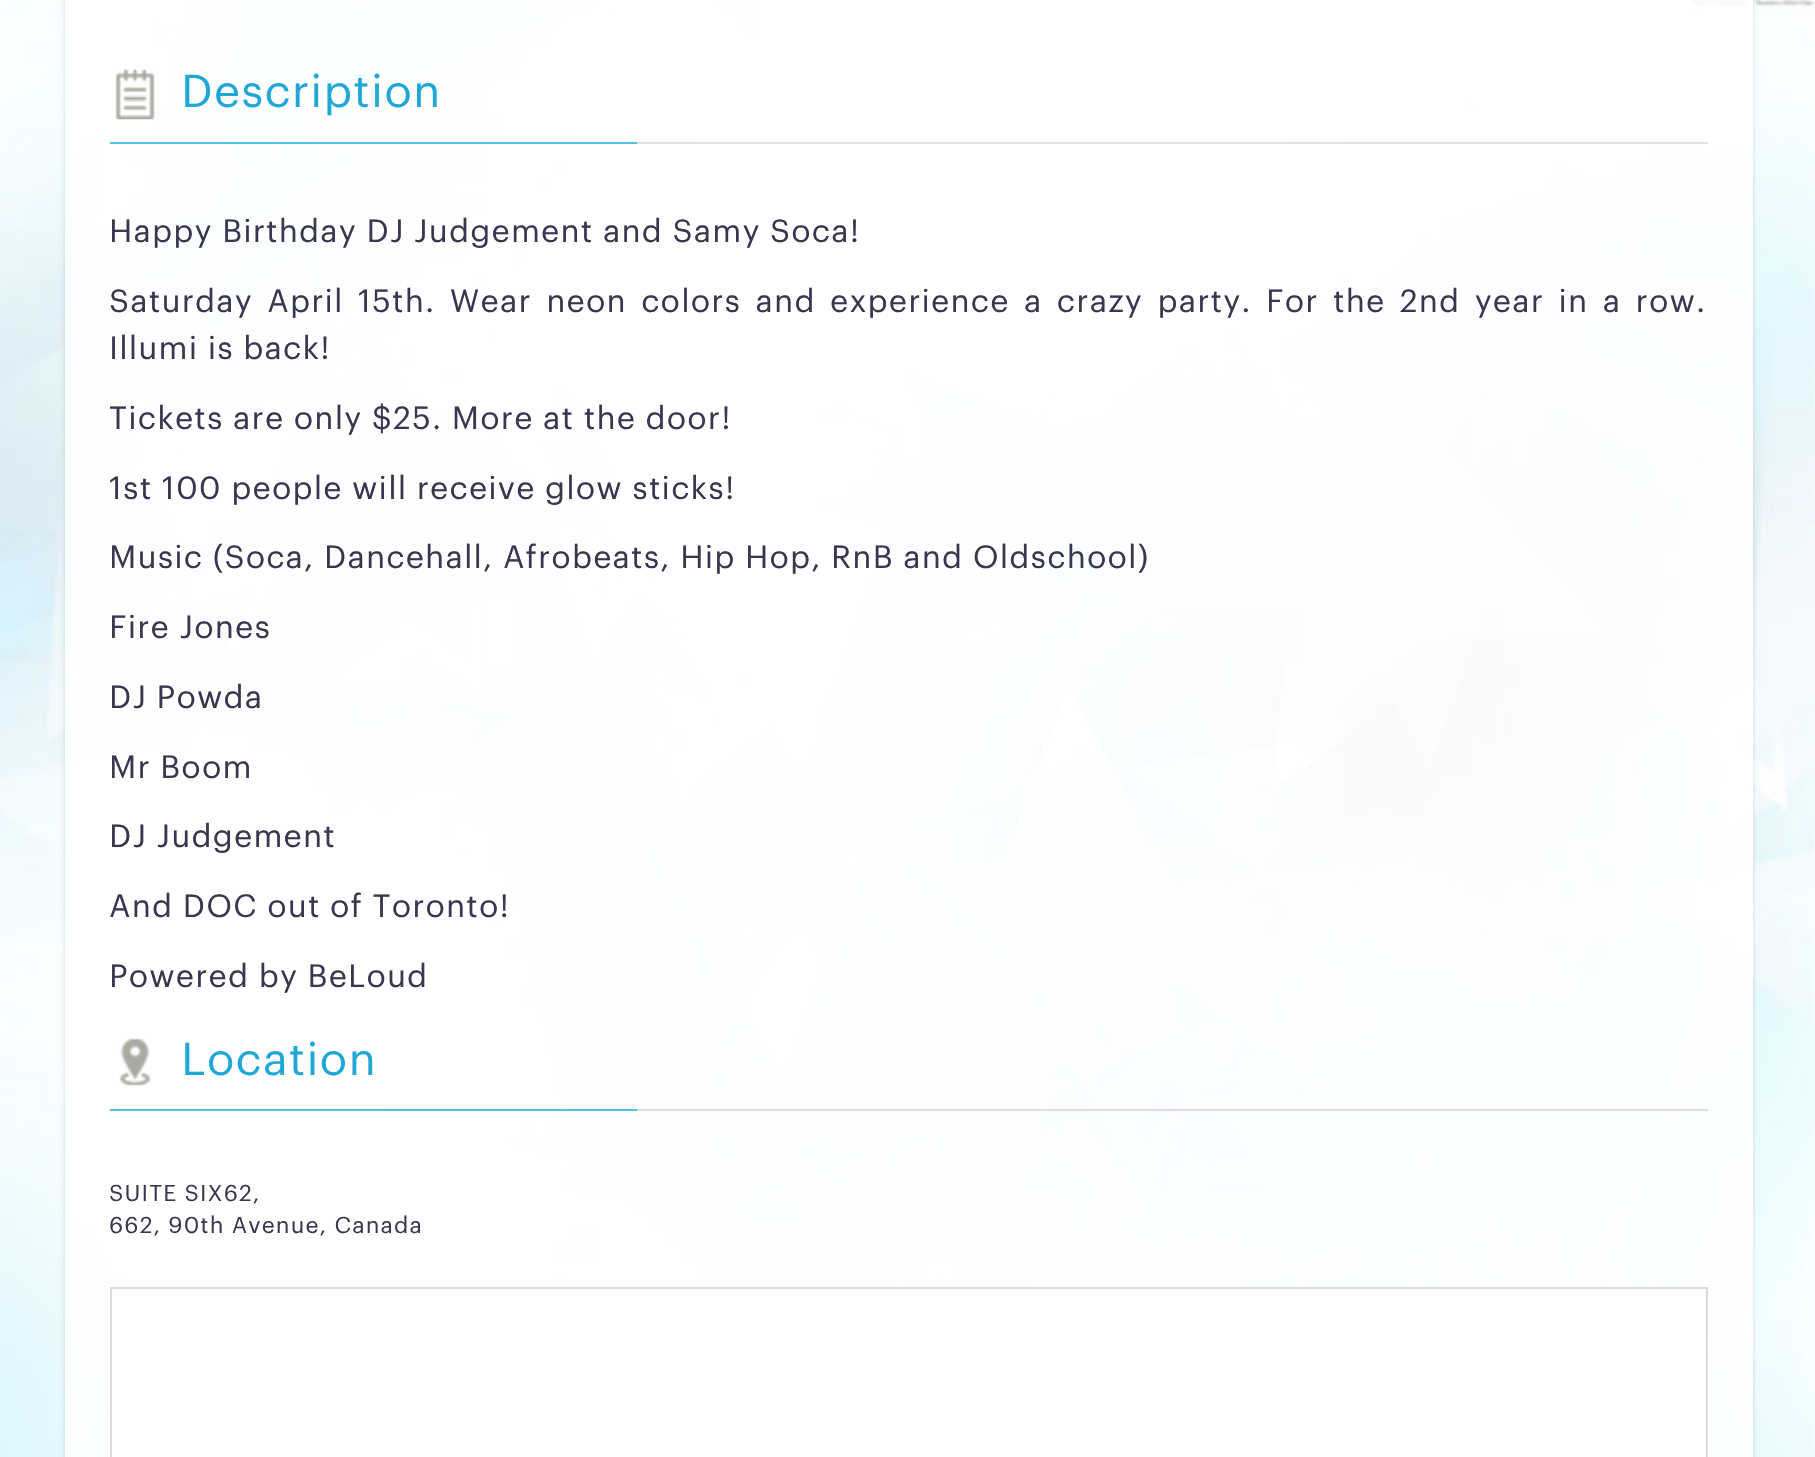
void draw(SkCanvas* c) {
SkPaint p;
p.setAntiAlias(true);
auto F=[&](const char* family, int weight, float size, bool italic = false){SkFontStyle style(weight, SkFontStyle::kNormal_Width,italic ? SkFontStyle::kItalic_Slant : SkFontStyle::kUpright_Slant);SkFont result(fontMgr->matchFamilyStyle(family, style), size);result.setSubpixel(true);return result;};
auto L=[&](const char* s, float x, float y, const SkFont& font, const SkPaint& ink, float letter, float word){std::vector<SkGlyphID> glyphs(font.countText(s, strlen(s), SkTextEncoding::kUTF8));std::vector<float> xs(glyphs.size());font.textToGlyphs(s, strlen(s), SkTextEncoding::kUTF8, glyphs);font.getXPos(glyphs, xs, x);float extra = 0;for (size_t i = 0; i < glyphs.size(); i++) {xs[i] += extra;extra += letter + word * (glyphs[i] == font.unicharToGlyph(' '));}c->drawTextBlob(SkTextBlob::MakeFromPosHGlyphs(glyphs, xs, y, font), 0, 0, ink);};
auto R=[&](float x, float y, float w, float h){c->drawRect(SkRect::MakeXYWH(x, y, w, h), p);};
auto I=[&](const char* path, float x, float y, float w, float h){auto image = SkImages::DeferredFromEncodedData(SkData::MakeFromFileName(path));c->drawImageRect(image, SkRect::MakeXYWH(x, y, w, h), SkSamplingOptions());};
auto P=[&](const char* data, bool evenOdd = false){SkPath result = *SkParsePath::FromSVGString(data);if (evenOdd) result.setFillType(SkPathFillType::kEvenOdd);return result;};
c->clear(0xffffffff);
I("1.png",0,0,1815,1457);
c->save();
c->clipPath(P("M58 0h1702v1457h-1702zm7-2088h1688v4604h-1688z",true),true);
p.setColor(0x26000000);
p.setMaskFilter(SkMaskFilter::MakeBlur(kNormal_SkBlurStyle, 2));
c->drawRect(SkRect::MakeXYWH(65,-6,1688,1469),p);
p.setMaskFilter(nullptr);
c->restore();
p.setColor(0xdeffffff);
R(65,0,1688,1457);
I("2.png",115,69,40,51);
auto f1 = F("Graphik",400,45);
p.setColor(0xff20a7d6);
L("Description",181,107,f1,p,1.12,0);
p.setColor(0xb3d8d0d0);
R(637,142,1071,2);
p.setColor(0xff4ec3e4);
R(110,142,527,2);
auto f2 = F("Graphik",400,31.5);
p.setColor(0xff39364f);
L("Happy Birthday DJ Judgement and Samy Soca!",109,242,f2,p,1.12,0);
L("Saturday April 15th. Wear neon colors and experience a crazy party. For the 2nd year in a row.",109,312,f2,p,1.12,4.9);
L("Illumi is back!",109,359,f2,p,1.12,0);
L("Tickets are only $25. More at the door!",109,429,f2,p,1.12,0);
L("1st 100 people will receive glow sticks!",109,499,f2,p,1.12,0);
L("Music (Soca, Dancehall, Afrobeats, Hip Hop, RnB and Oldschool)",109,568,f2,p,1.12,0);
L("Fire Jones",109,638,f2,p,1.12,0);
L("DJ Powda",109,708,f2,p,1.12,0);
L("Mr Boom",109,778,f2,p,1.12,0);
L("DJ Judgement",109,847,f2,p,1.12,0);
L("And DOC out of Toronto!",109,917,f2,p,1.12,0);
L("Powered by BeLoud",109,987,f2,p,1.12,0);
I("3.png",119,1038,32,48);
p.setColor(0xff20a7d6);
L("Location",181,1075,f1,p,1.12,0);
p.setColor(0xb3d8d0d0);
R(637,1109,1071,2);
p.setColor(0xff4ec3e4);
R(110,1109,527,2);
auto f3 = F("Graphik",400,22.5);
p.setColor(0xff39364f);
L("SUITE SIX62,",109,1201,f3,p,1.12,0);
L("662, 90th Avenue, Canada",109,1233,f3,p,1.12,0);
p.setColor(0xffffffff);
c->drawRect(SkRect::MakeXYWH(111,1288,1596,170),p);
p.setStroke(true);
p.setStrokeWidth(2);
p.setColor(0xffdbdae3);
c->drawRect(SkRect::MakeXYWH(111,1288,1596,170),p);
}
